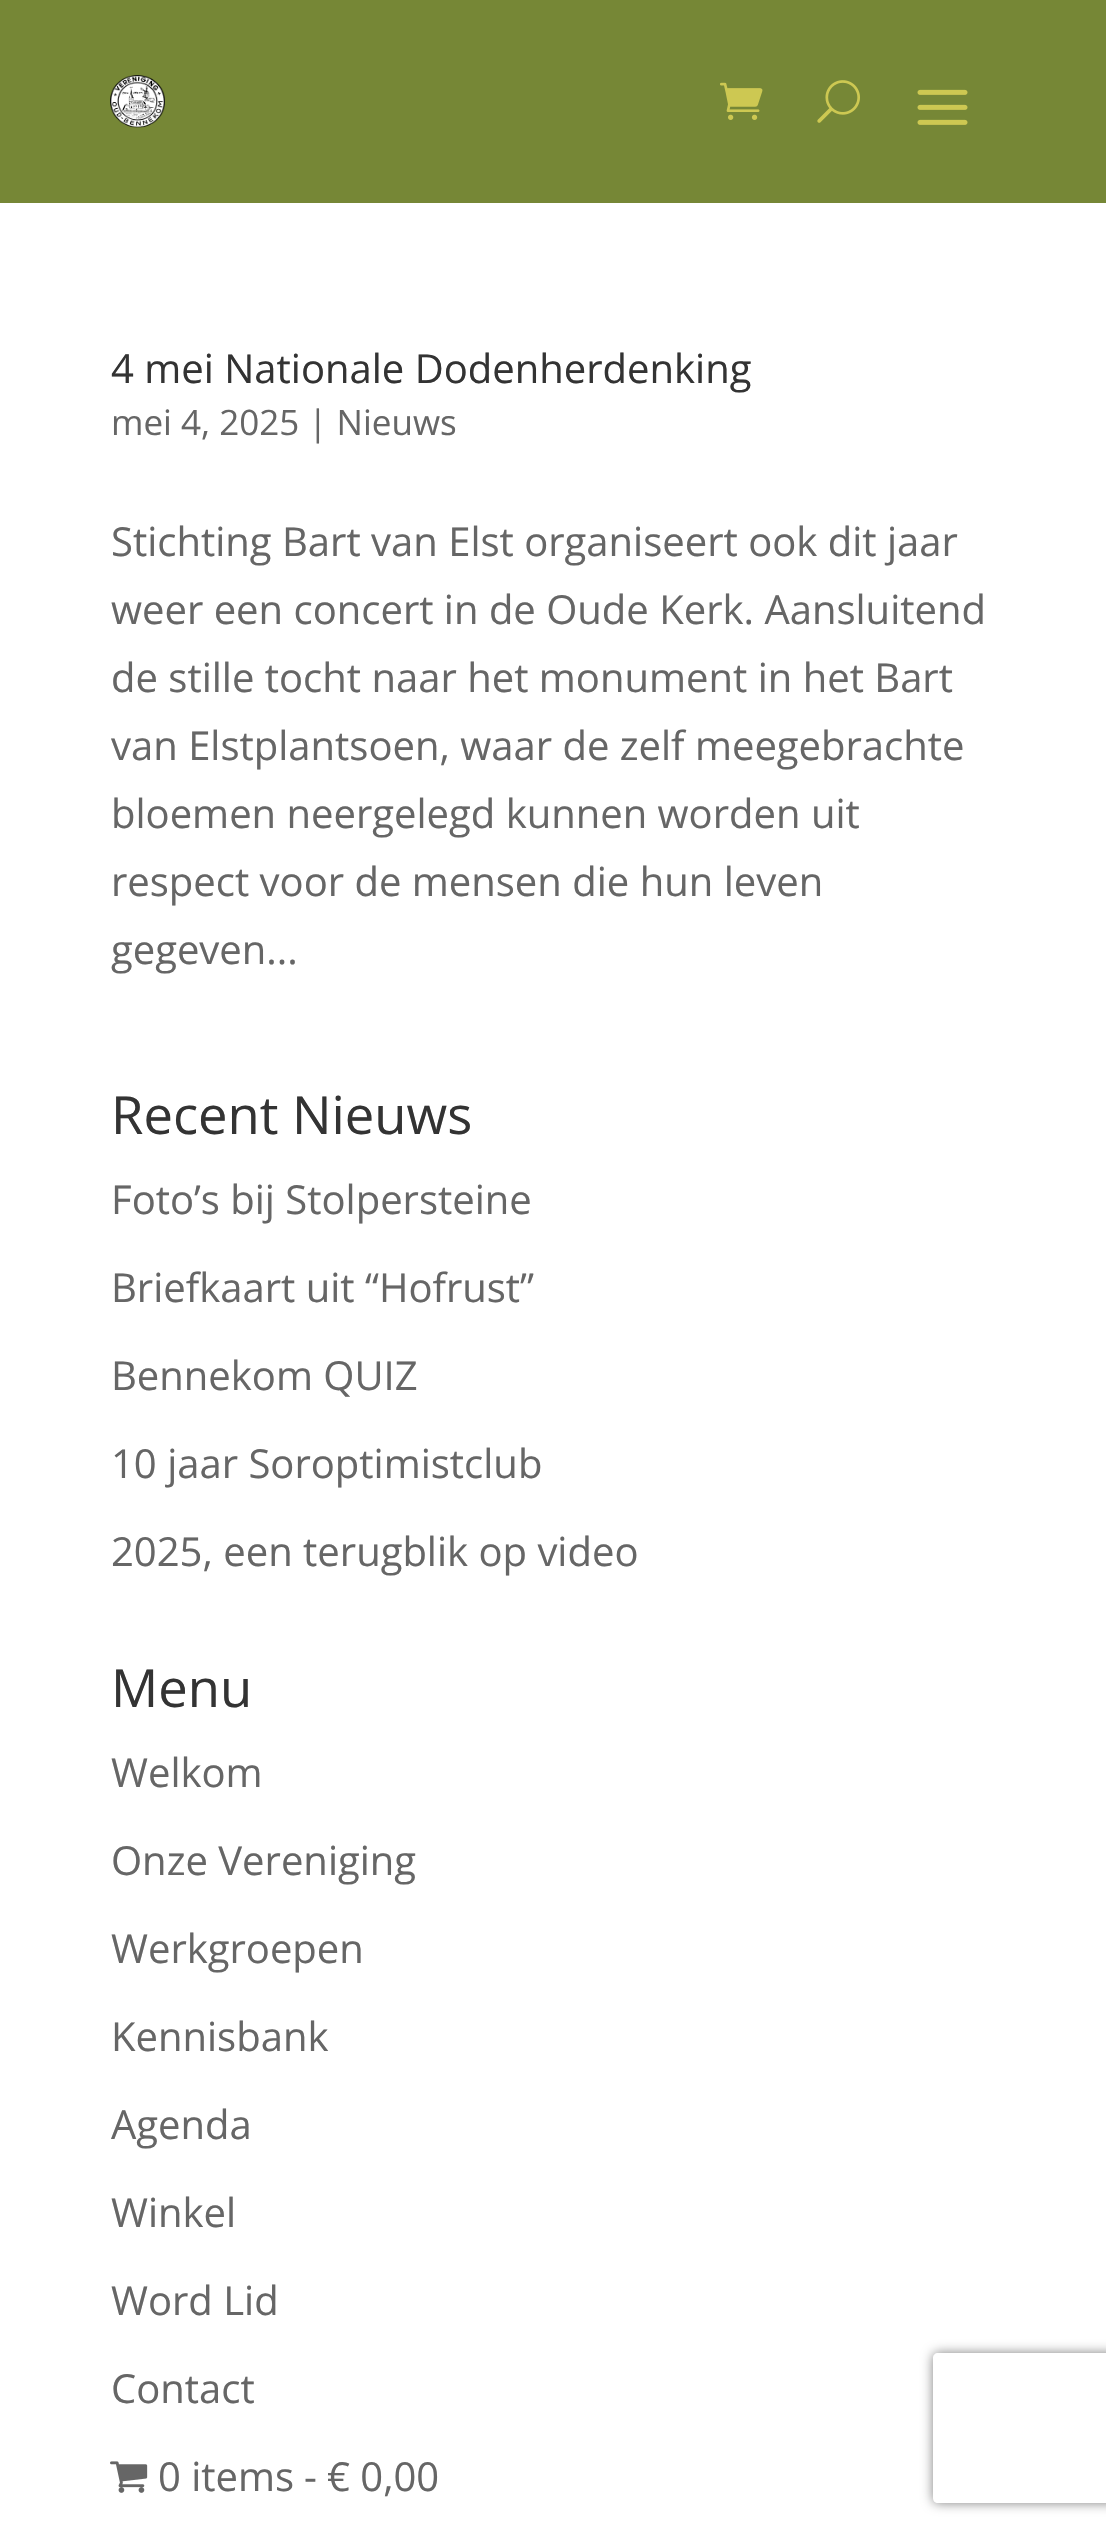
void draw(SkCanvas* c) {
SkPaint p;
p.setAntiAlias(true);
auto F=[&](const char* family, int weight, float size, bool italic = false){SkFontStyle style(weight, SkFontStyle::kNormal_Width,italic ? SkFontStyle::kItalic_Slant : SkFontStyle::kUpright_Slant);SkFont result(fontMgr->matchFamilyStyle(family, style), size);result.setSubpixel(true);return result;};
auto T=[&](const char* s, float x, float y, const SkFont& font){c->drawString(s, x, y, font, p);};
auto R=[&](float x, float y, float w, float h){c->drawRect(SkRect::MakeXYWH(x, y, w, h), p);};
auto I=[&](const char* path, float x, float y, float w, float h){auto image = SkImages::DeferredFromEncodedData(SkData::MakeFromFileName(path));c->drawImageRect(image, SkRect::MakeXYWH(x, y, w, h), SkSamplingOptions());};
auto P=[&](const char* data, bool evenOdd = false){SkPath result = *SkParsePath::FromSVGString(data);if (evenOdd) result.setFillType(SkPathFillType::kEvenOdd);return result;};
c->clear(0xffffffff);
p.setColor(0xff768736);
R(0,0,1106,203);
I("1.png",110,75,55,53);
I("2.png",720,82,43,38);
I("3.png",817,80,43,43);
I("4.png",917,89,51,36);
auto f1 = F("Open Sans",400,40);
p.setColor(0xff333333);
T("4 mei Nationale Dodenherdenking",111,383,f1);
auto f2 = F("Open Sans",400,35);
p.setColor(0xff666666);
T("mei 4, 2025 | Nieuws",111,435,f2);
T("Stichting Bart van Elst organiseert ook dit jaar",111,556,f1);
T("weer een concert in de Oude Kerk. Aansluitend",111,624,f1);
T("de stille tocht naar het monument in het Bart",111,692,f1);
T("van Elstplantsoen, waar de zelf meegebrachte",111,760,f1);
T("bloemen neergelegd kunnen worden uit",111,828,f1);
T("respect voor de mensen die hun leven",111,896,f1);
T("gegeven...",111,964,f1);
auto f3 = F("Open Sans",400,52.5);
p.setColor(0xff333333);
T("Recent Nieuws",111,1134,f3);
p.setColor(0xff666666);
T("Foto’s bij Stolpersteine",111,1214,f1);
T("Briefkaart uit “Hofrust”",111,1302,f1);
T("Bennekom QUIZ",111,1390,f1);
T("10 jaar Soroptimistclub",111,1478,f1);
T("2025, een terugblik op video",111,1566,f1);
p.setColor(0xff333333);
T("Menu",111,1707,f3);
p.setColor(0xff666666);
T("Welkom",111,1787,f1);
T("Onze Vereniging",111,1875,f1);
T("Werkgroepen",111,1963,f1);
T("Kennisbank",111,2051,f1);
T("Agenda",111,2139,f1);
T("Winkel",111,2227,f1);
T("Word Lid",111,2315,f1);
T("Contact",111,2403,f1);
I("5.png",110,2461,38,32);
T("0 items",158,2491,f1);
T("-",304,2491,f1);
T("€ 0,00",327,2491,f1);
c->save();
c->clipPath(P("M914 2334h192v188h-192zm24 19h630c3 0 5 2 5 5v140c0 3-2 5-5 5h-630c-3 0-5-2-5-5v-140c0-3 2-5 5-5z",true),true);
p.setColor(0xff808080);
p.setMaskFilter(SkMaskFilter::MakeBlur(kNormal_SkBlurStyle, 6));
c->drawRoundRect(SkRect::MakeXYWH(933,2353,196,150),5,5,p);
p.setMaskFilter(nullptr);
c->restore();
}
